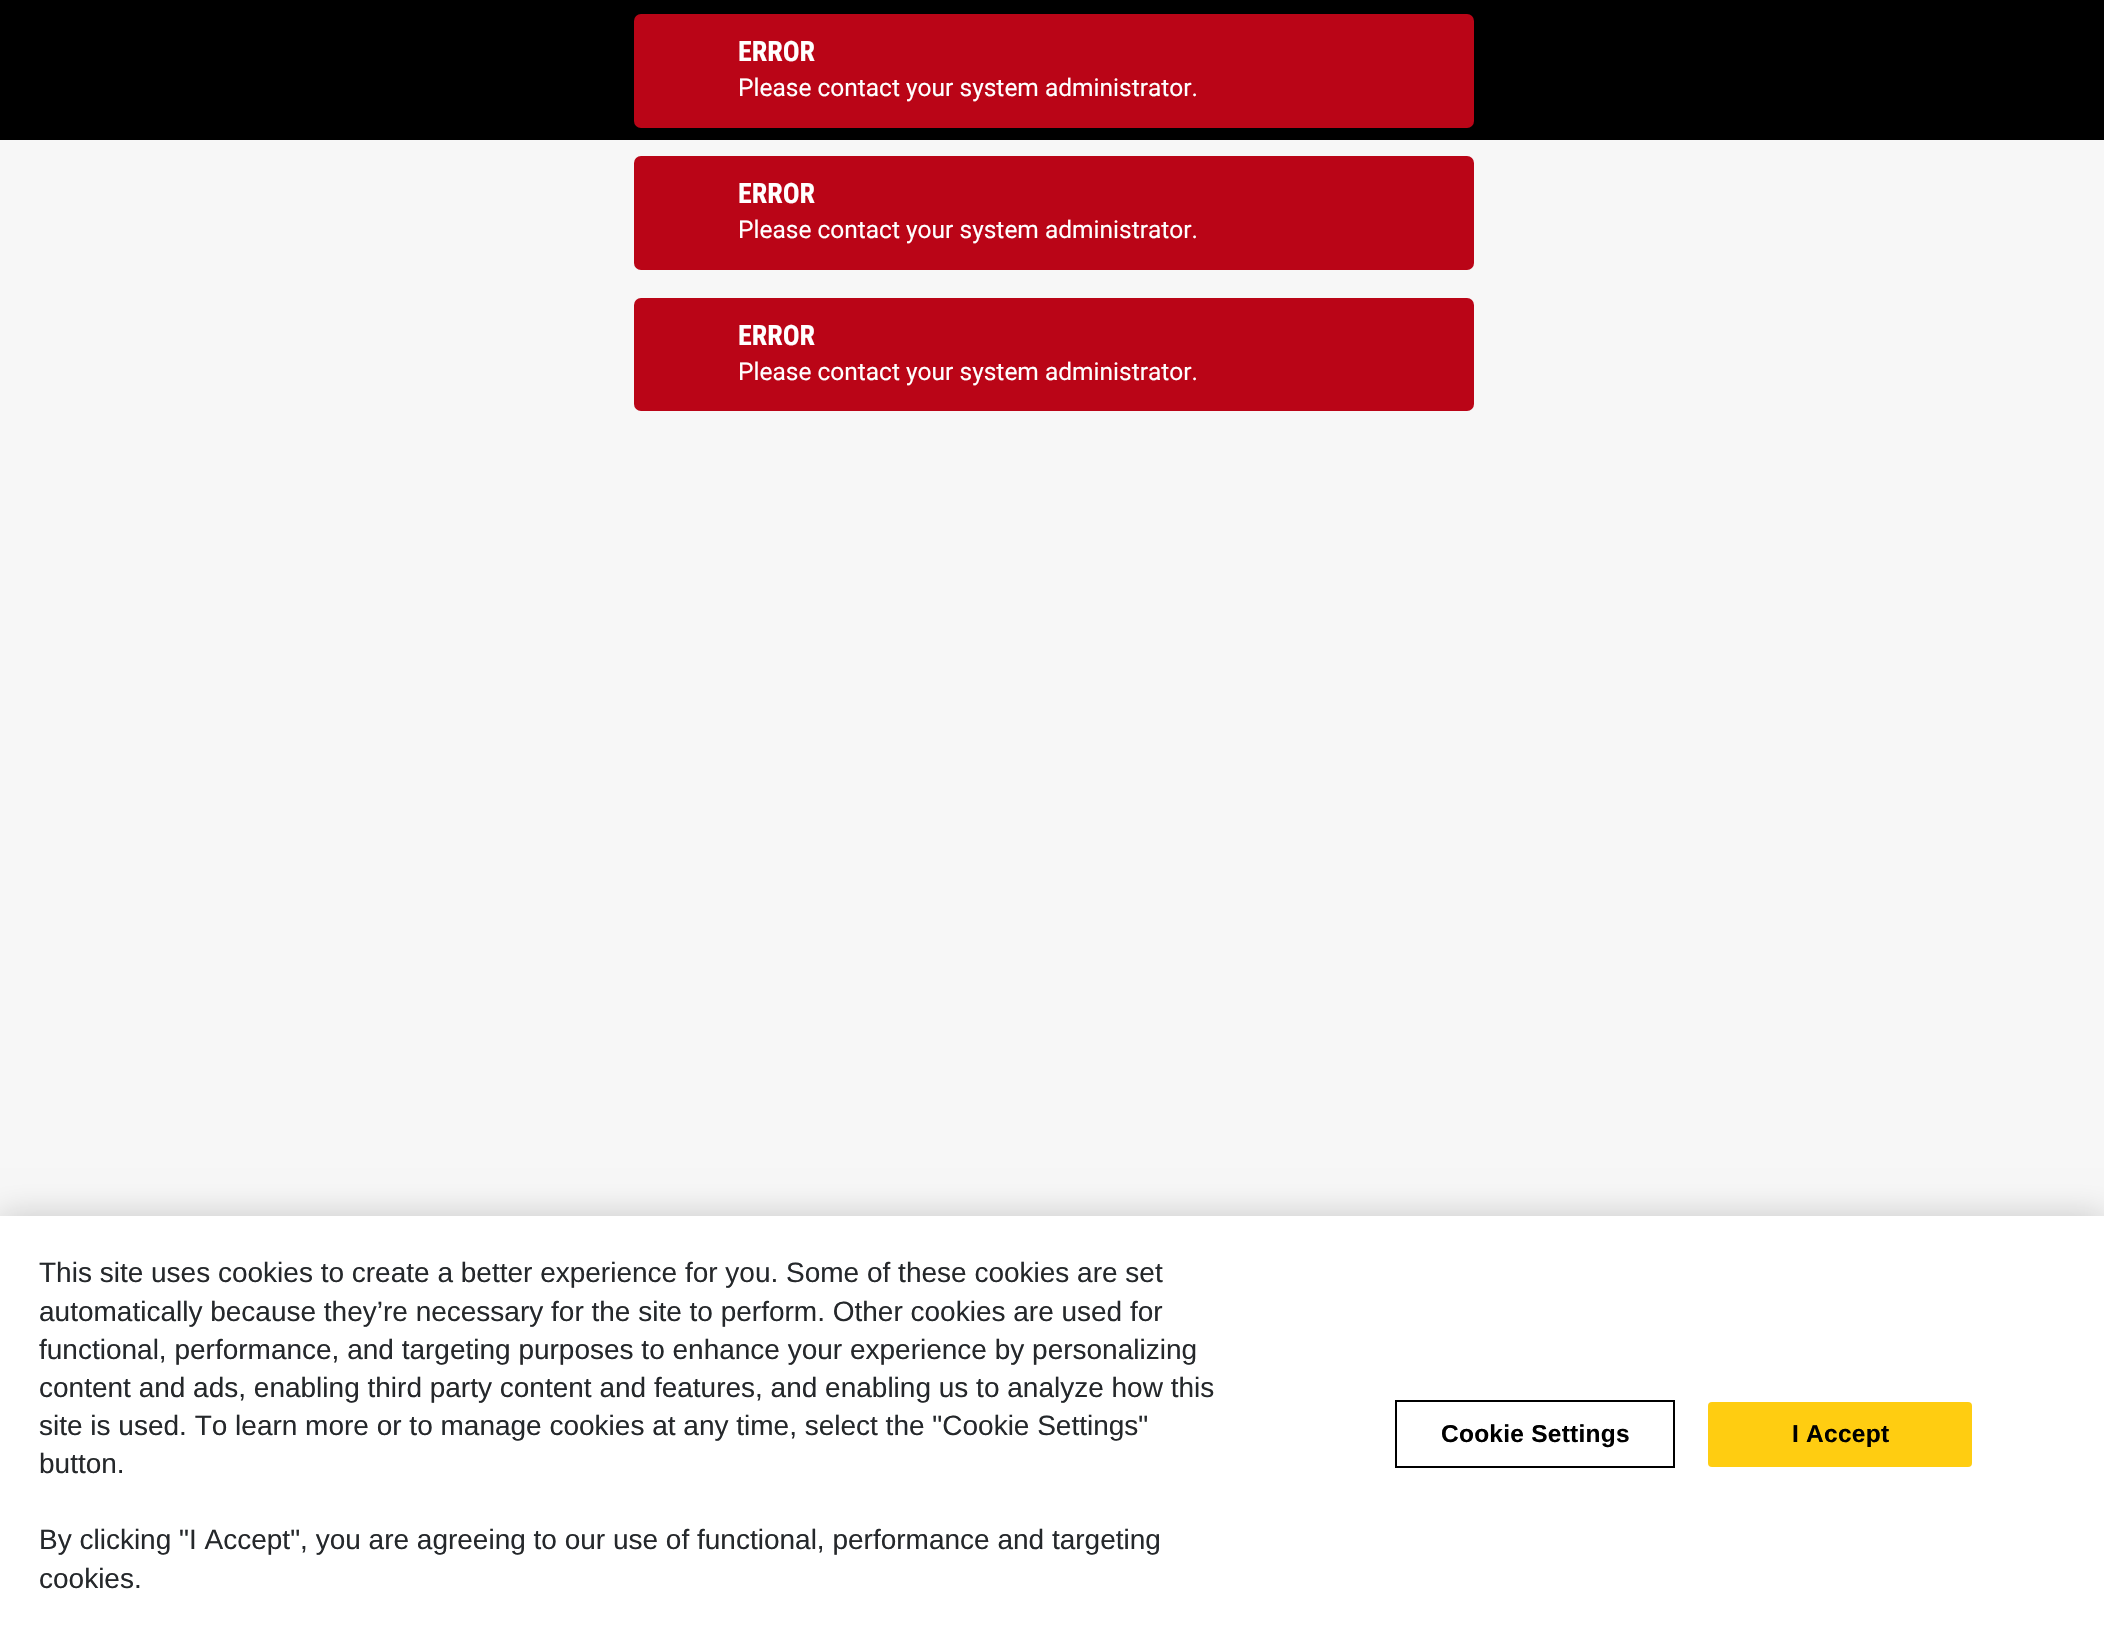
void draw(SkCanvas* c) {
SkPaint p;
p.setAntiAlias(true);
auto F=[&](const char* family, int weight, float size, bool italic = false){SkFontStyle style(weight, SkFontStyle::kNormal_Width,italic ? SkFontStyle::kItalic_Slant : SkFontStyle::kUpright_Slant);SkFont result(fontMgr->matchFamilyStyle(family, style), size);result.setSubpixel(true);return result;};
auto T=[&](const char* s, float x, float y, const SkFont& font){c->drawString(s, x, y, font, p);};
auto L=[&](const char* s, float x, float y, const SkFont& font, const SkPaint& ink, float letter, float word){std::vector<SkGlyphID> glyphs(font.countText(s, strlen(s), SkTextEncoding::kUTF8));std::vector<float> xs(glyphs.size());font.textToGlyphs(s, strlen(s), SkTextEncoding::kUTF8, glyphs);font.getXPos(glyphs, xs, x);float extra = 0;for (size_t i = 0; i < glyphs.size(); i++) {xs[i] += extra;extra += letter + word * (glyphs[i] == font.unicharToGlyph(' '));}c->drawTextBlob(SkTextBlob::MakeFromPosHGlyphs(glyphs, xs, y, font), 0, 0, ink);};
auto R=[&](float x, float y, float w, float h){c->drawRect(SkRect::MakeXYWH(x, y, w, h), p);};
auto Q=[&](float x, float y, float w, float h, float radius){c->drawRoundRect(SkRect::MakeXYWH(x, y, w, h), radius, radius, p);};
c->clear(0xfff7f7f7);
p.setColor(0xff000000);
R(0,0,2104,140);
p.setColor(0xffba0517);
Q(634,14,840,114,7);
auto f1 = F("Roboto Condensed",700,28);
p.setColor(0xffffffff);
T("ERROR",738,61,f1);
auto f2 = F("Roboto",400,24.5);
T("Please contact your system administrator.",738,96,f2);
p.setColor(0xffba0517);
Q(634,156,840,114,7);
p.setColor(0xffffffff);
T("ERROR",738,203,f1);
T("Please contact your system administrator.",738,238,f2);
p.setColor(0xffba0517);
Q(634,298,840,113,7);
p.setColor(0xffffffff);
T("ERROR",738,345,f1);
T("Please contact your system administrator.",738,380,f2);
p.setColor(0x33000000);
p.setMaskFilter(SkMaskFilter::MakeBlur(kNormal_SkBlurStyle, 16));
c->drawRect(SkRect::MakeXYWH(0,1216,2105,420),p);
p.setMaskFilter(nullptr);
p.setColor(0xffffffff);
R(0,1216,2104,420);
auto f3 = F("Liberation Sans",400,28);
p.setColor(0xff25282b);
T("This site uses cookies to create a better experience for you. Some of these cookies are set",39,1282,f3);
T("automatically because they’re necessary for the site to perform. Other cookies are used for",39,1321,f3);
T("functional, performance, and targeting purposes to enhance your experience by personalizing",39,1359,f3);
T("content and ads, enabling third party content and features, and enabling us to analyze how this",39,1397,f3);
T("site is used. To learn more or to manage cookies at any time, select the \"Cookie Settings\"",39,1435,f3);
T("button.",39,1473,f3);
T("By clicking \"I Accept\", you are agreeing to our use of functional, performance and targeting",39,1549,f3);
T("cookies.",39,1588,f3);
p.setStroke(true);
p.setStrokeWidth(2);
p.setColor(0xff000000);
c->drawRect(SkRect::MakeXYWH(1396,1401,278,66),p);
auto f4 = F("Liberation Sans",700,24.5);
p.setStroke(false);
L("Cookie Settings",1441,1442,f4,p,.25,0);
p.setColor(0xffffcd11);
Q(1708,1402,264,65,4);
p.setColor(0xff000000);
L("I Accept",1792,1442,f4,p,.25,0);
}
